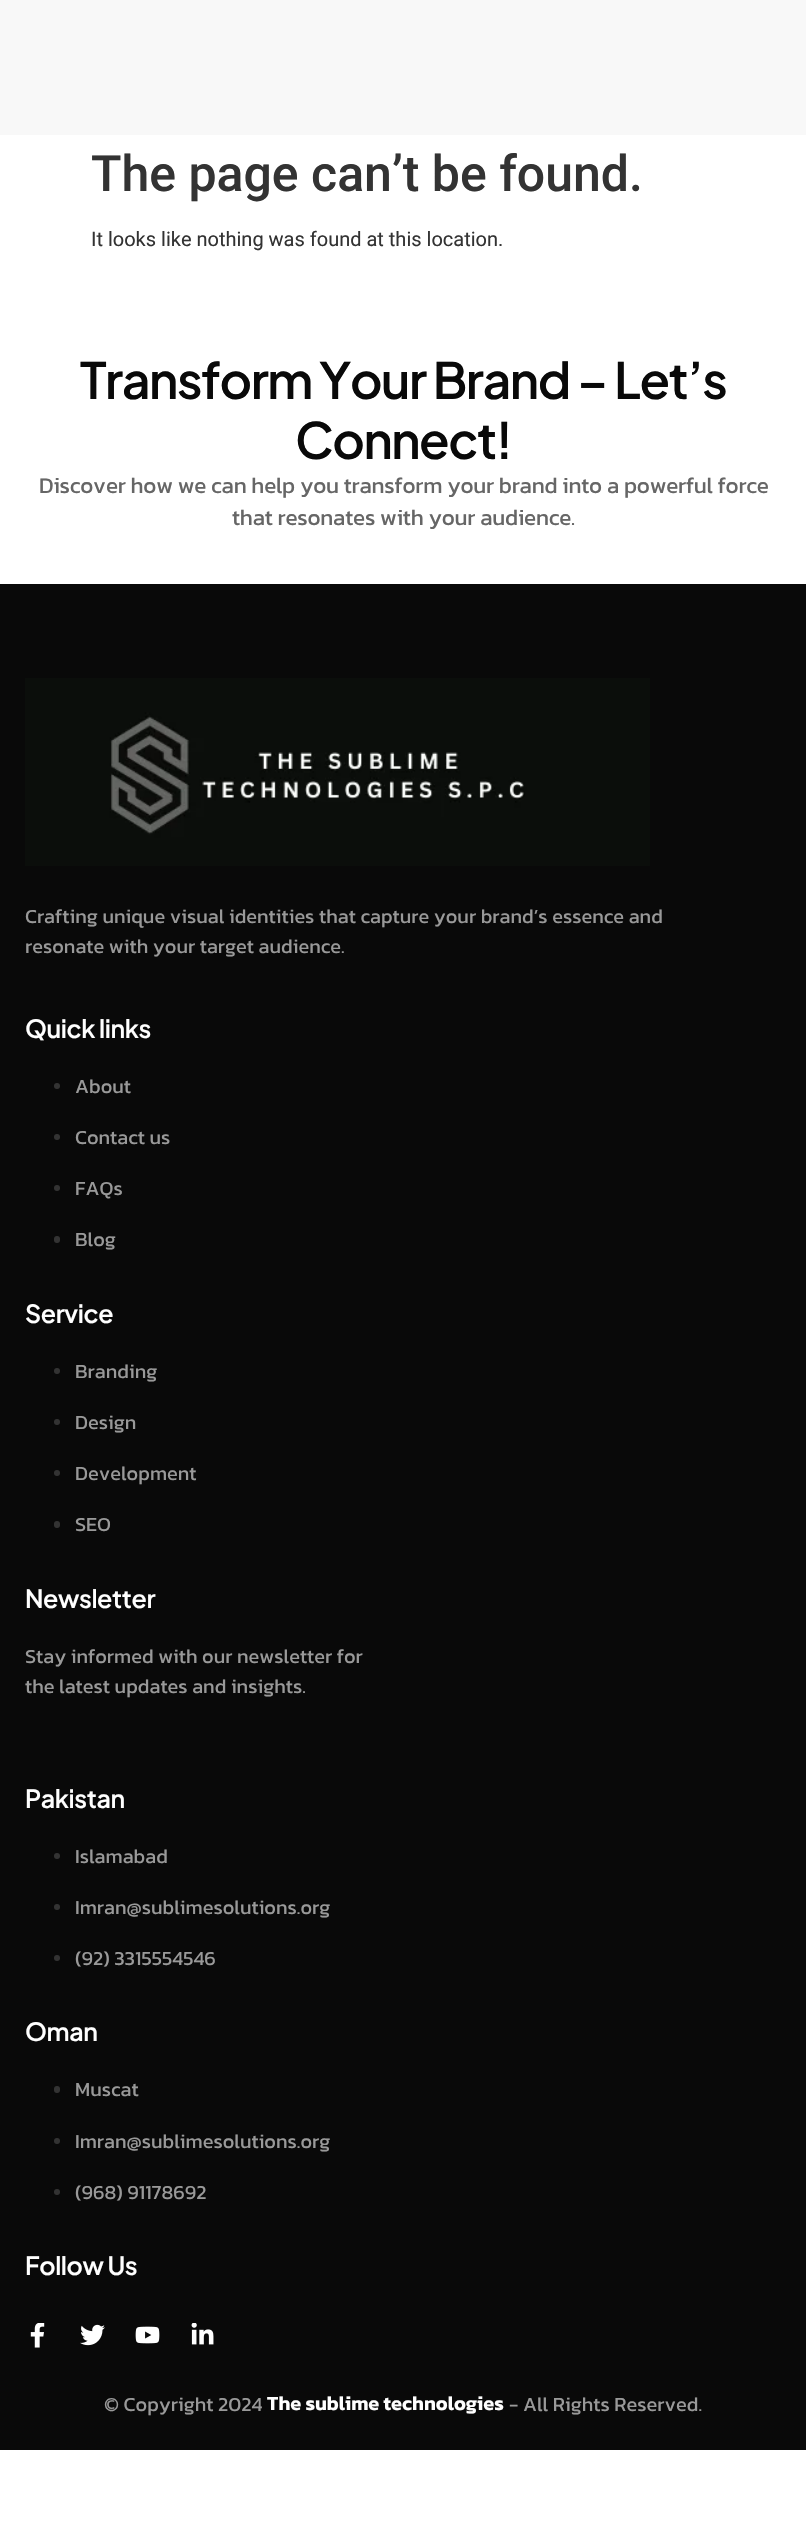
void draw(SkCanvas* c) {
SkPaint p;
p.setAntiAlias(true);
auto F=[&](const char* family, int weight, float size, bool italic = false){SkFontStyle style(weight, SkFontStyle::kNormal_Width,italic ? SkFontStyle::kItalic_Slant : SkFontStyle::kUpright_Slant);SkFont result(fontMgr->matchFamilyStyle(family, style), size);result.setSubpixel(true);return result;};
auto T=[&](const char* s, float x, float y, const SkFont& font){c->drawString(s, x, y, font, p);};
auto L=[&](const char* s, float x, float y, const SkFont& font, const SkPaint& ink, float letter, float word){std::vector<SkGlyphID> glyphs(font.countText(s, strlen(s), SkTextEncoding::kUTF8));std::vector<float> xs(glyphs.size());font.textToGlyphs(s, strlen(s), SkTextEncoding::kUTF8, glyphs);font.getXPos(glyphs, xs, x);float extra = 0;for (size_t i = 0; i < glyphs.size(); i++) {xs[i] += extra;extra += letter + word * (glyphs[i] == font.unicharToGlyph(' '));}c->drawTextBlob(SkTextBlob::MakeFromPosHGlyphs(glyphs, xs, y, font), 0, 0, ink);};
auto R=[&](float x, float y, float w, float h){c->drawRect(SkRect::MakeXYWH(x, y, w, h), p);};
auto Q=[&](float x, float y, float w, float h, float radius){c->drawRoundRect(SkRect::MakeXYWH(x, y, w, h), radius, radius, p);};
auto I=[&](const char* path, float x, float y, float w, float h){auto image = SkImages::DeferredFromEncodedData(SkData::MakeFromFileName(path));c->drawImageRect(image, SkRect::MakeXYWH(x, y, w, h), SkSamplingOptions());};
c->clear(0xffffffff);
p.setColor(0xfff8f8f8);
R(0,0,806,135);
auto f1 = F("Roboto",500,50);
p.setColor(0xff333333);
T("The page can’t be found.",91,191,f1);
auto f2 = F("Roboto",400,20);
T("It looks like nothing was found at this location.",91,246,f2);
auto f3 = F("Plus Jakarta Sans",600,50);
p.setColor(0xff090909);
L("Transform Your Brand – Let’s",80,399,f3,p,-1.5,0);
L("Connect!",295,459,f3,p,-1.5,0);
auto f4 = F("Kanit",400,22.5);
p.setColor(0xff666666);
L("Discover how we can help you transform your brand into a powerful force",39,493,f4,p,-.22,0);
L("that resonates with your audience.",232,525,f4,p,-.22,0);
p.setColor(0xff090909);
R(0,584,806,1866);
I("1.png",25,678,625,188);
auto f5 = F("Kanit",400,20);
p.setColor(0xff999999);
T("Crafting unique visual identities that capture your brand’s essence and",25,923,f5);
T("resonate with your target audience.",25,953,f5);
auto f6 = F("Plus Jakarta Sans",600,25);
p.setColor(0xffffffff);
L("Quick links",25,1038,f6,p,-.4,0);
p.setColor(0xff333333);
c->drawCircle(57,1086,3,p);
p.setColor(0xff999999);
T("About",75,1093,f5);
p.setColor(0xff333333);
c->drawCircle(57,1137,3,p);
p.setColor(0xff999999);
T("Contact us",75,1144,f5);
p.setColor(0xff333333);
c->drawCircle(57,1188,3,p);
p.setColor(0xff999999);
T("FAQs",75,1195,f5);
p.setColor(0xff333333);
Q(54,1236,6,7,3);
p.setColor(0xff999999);
T("Blog",75,1246,f5);
p.setColor(0xffffffff);
L("Service",25,1323,f6,p,-.4,0);
p.setColor(0xff333333);
c->drawCircle(57,1371,3,p);
p.setColor(0xff999999);
T("Branding",75,1378,f5);
p.setColor(0xff333333);
c->drawCircle(57,1422,3,p);
p.setColor(0xff999999);
T("Design",75,1429,f5);
p.setColor(0xff333333);
c->drawCircle(57,1473,3,p);
p.setColor(0xff999999);
T("Development",75,1480,f5);
p.setColor(0xff333333);
Q(54,1521,6,7,3);
p.setColor(0xff999999);
T("SEO",75,1531,f5);
p.setColor(0xffffffff);
L("Newsletter",25,1608,f6,p,-.4,0);
p.setColor(0xff999999);
T("Stay informed with our newsletter for",25,1663,f5);
T("the latest updates and insights.",25,1693,f5);
p.setColor(0xffffffff);
L("Pakistan",25,1808,f6,p,-.4,0);
p.setColor(0xff333333);
c->drawCircle(57,1856,3,p);
p.setColor(0xff999999);
T("Islamabad",75,1863,f5);
p.setColor(0xff333333);
c->drawCircle(57,1907,3,p);
p.setColor(0xff999999);
T("Imran@sublimesolutions.org",75,1914,f5);
p.setColor(0xff333333);
c->drawCircle(57,1958,3,p);
p.setColor(0xff999999);
T("(92) 3315554546",75,1965,f5);
p.setColor(0xffffffff);
L("Oman",25,2041,f6,p,-.4,0);
p.setColor(0xff333333);
Q(54,2086,6,7,3);
p.setColor(0xff999999);
T("Muscat",75,2096,f5);
p.setColor(0xff333333);
c->drawCircle(57,2141,3,p);
p.setColor(0xff999999);
T("Imran@sublimesolutions.org",75,2148,f5);
p.setColor(0xff333333);
c->drawCircle(57,2192,3,p);
p.setColor(0xff999999);
T("(968) 91178692",75,2199,f5);
p.setColor(0xffffffff);
L("Follow Us",25,2275,f6,p,-.4,0);
I("2.png",30,2323,15,25);
I("3.png",80,2324,25,22);
I("4.png",135,2326,25,18);
I("5.png",191,2323,23,22);
p.setColor(0xff999999);
T("© Copyright 2024",104,2411,f5);
auto f7 = F("Kanit",600,20);
p.setColor(0xffffffff);
T("The sublime technologies",267,2410,f7);
p.setColor(0xff999999);
T("- All Rights Reserved.",509,2411,f5);
}
